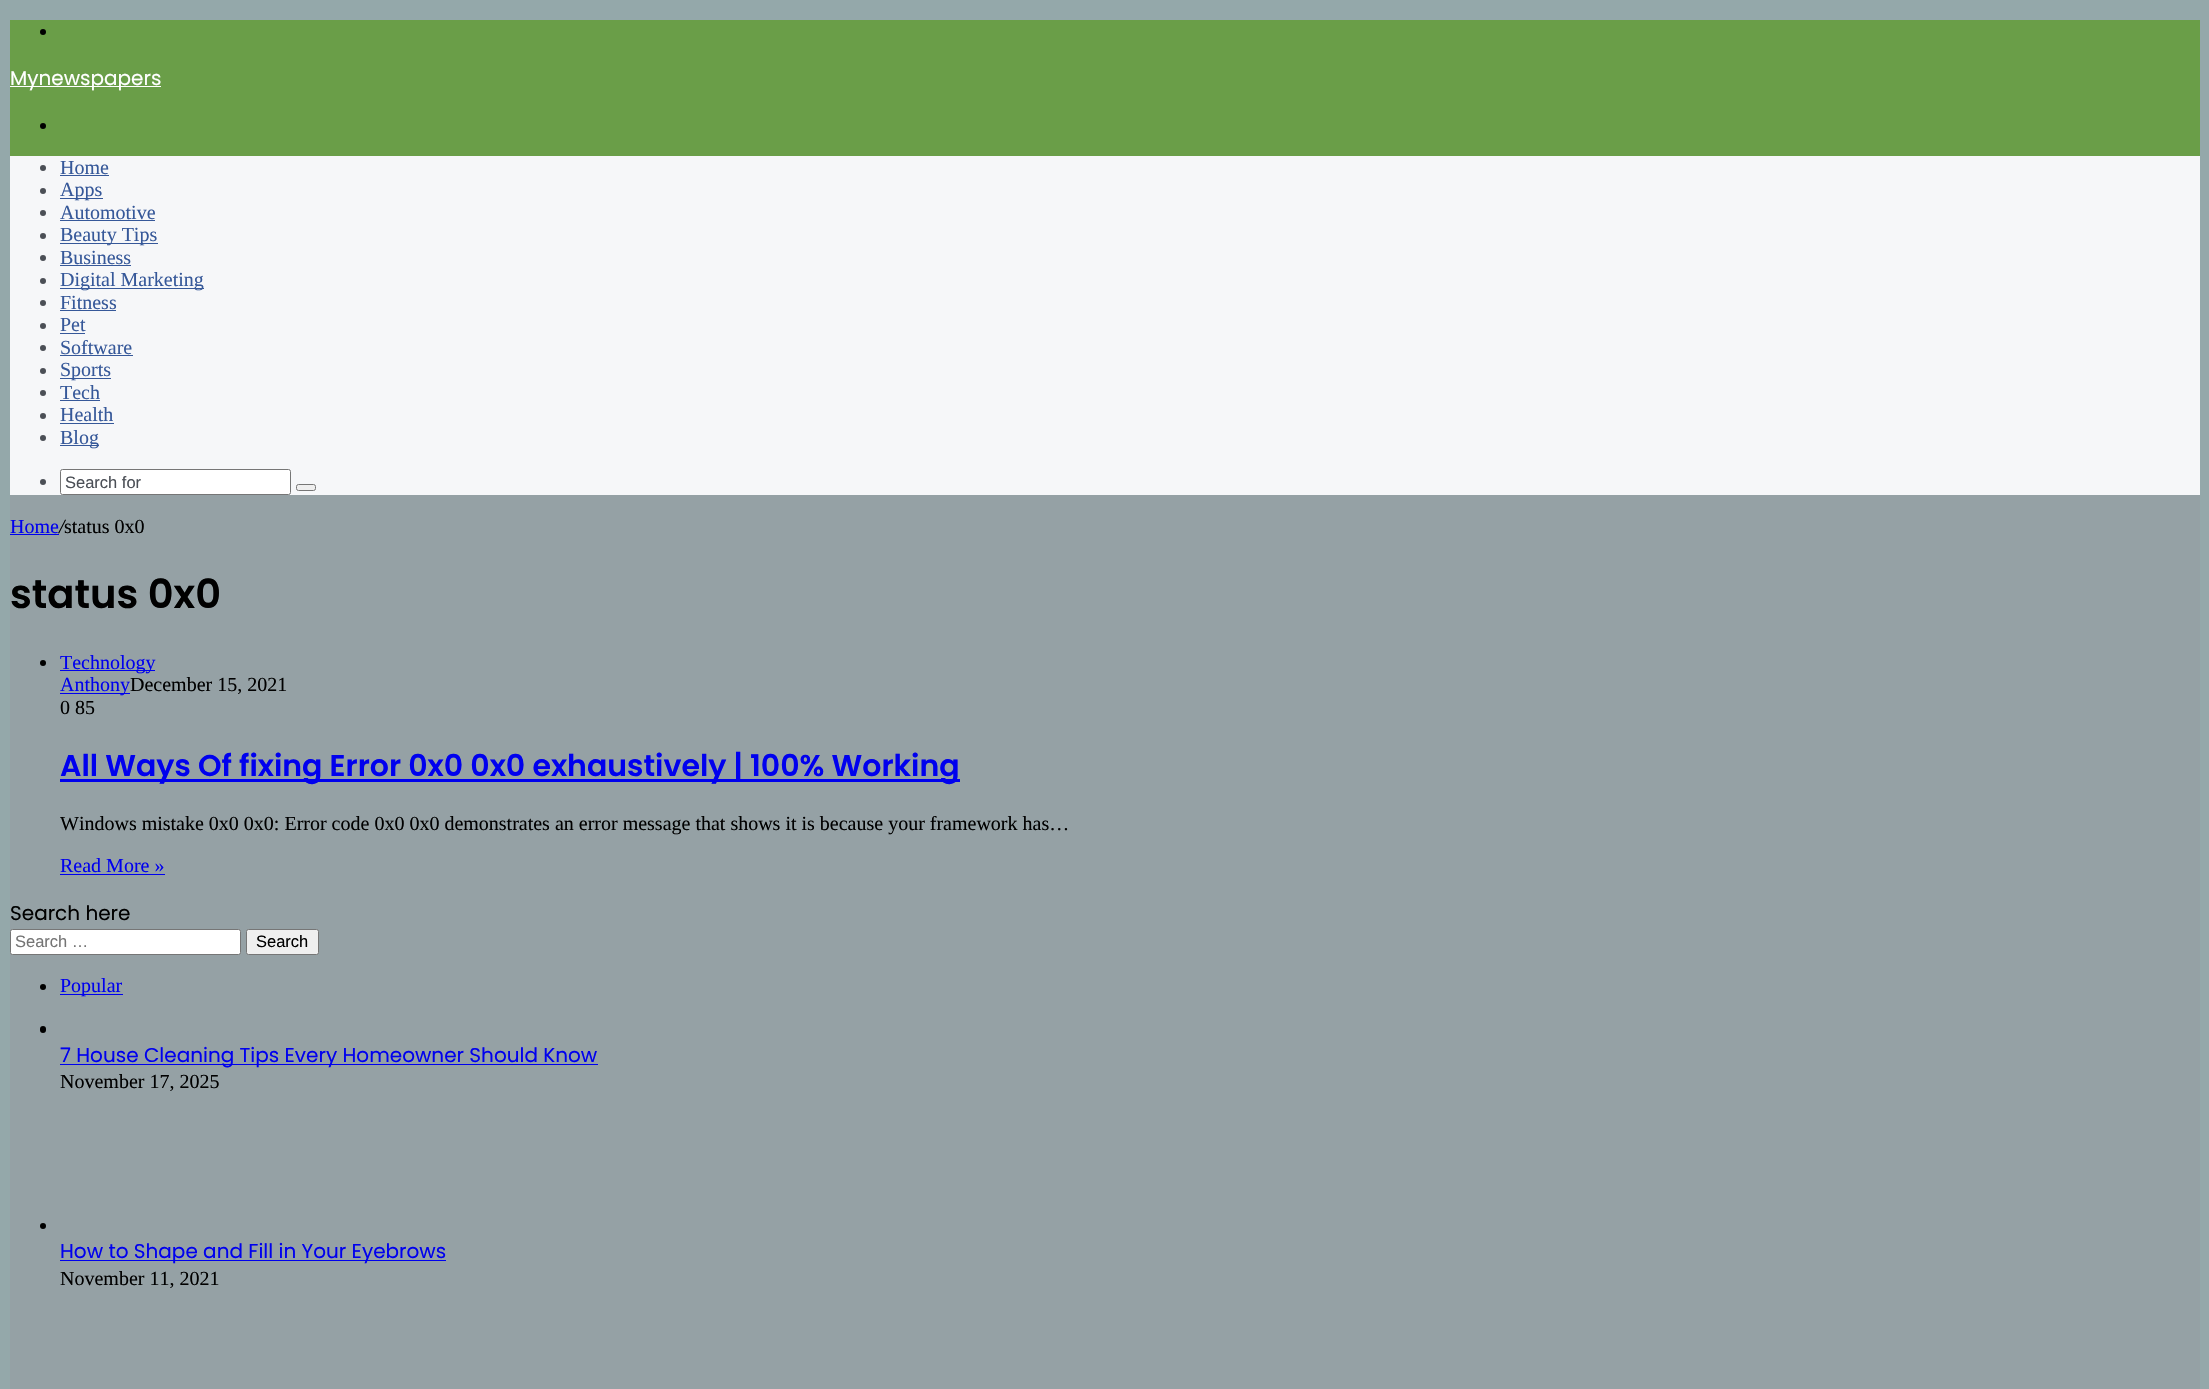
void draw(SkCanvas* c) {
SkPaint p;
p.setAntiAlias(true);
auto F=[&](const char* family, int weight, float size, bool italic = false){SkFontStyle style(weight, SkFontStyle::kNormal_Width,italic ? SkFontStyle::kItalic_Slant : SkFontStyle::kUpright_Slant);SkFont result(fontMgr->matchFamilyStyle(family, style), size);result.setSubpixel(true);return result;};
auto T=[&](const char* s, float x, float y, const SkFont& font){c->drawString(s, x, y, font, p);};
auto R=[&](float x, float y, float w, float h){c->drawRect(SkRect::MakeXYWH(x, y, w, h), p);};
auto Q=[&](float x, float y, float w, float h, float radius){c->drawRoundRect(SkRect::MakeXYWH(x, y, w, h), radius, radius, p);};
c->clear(0xff94a8aa);
p.setColor(0xff95a1a5);
R(10,495,2190,894);
p.setColor(0xff6a9e48);
R(10,20,2190,136);
p.setColor(0xff000000);
c->drawCircle(43,32,3,p);
p.setColor(0xffffffff);
R(10,86,151,1);
auto f1 = F("Poppins",400,20);
T("Mynewspapers",10,85,f1);
p.setColor(0xff000000);
c->drawCircle(43,126,3,p);
p.setColor(0xfff6f7f9);
R(10,156,2190,339);
p.setColor(0xff4b4f56);
c->drawCircle(43,168,3,p);
auto f2 = F("Liberation Serif",400,20);
p.setColor(0xff365899);
T("Home",60,174,f2);
R(60,175,49,1);
p.setColor(0xff4b4f56);
c->drawCircle(43,191,3,p);
p.setColor(0xff365899);
R(60,198,43,1);
T("Apps",60,196,f2);
p.setColor(0xff4b4f56);
c->drawCircle(43,213,3,p);
p.setColor(0xff365899);
T("Automotive",60,219,f2);
R(60,220,95,1);
p.setColor(0xff4b4f56);
c->drawCircle(43,236,3,p);
p.setColor(0xff365899);
R(60,243,98,1);
T("Beauty Tips",60,241,f2);
p.setColor(0xff4b4f56);
c->drawCircle(43,258,3,p);
p.setColor(0xff365899);
T("Business",60,264,f2);
R(60,265,71,1);
p.setColor(0xff4b4f56);
c->drawCircle(43,281,3,p);
p.setColor(0xff365899);
R(60,288,144,1);
T("Digital Marketing",60,286,f2);
p.setColor(0xff4b4f56);
c->drawCircle(43,303,3,p);
p.setColor(0xff365899);
T("Fitness",60,309,f2);
R(60,310,56,1);
p.setColor(0xff4b4f56);
c->drawCircle(43,326,3,p);
p.setColor(0xff365899);
T("Pet",60,331,f2);
R(60,333,25,1);
p.setColor(0xff4b4f56);
c->drawCircle(43,348,3,p);
p.setColor(0xff365899);
T("Software",60,354,f2);
R(60,355,73,1);
p.setColor(0xff4b4f56);
c->drawCircle(43,371,3,p);
p.setColor(0xff365899);
R(60,378,51,1);
T("Sports",60,376,f2);
p.setColor(0xff4b4f56);
c->drawCircle(43,393,3,p);
p.setColor(0xff365899);
T("Tech",60,399,f2);
R(60,400,40,1);
p.setColor(0xff4b4f56);
c->drawCircle(43,416,3,p);
p.setColor(0xff365899);
T("Health",60,421,f2);
R(60,423,54,1);
p.setColor(0xff4b4f56);
c->drawCircle(43,438,3,p);
p.setColor(0xff365899);
R(60,445,39,1);
T("Blog",60,444,f2);
p.setColor(0xff4b4f56);
c->drawCircle(43,482,3,p);
p.setColor(0xffffffff);
c->drawRoundRect(SkRect::MakeXYWH(60.5,469.5,230,25),2,2,p);
p.setStroke(true);
p.setStrokeWidth(1);
p.setColor(0xff767676);
c->drawRoundRect(SkRect::MakeXYWH(60.5,469.5,230,25),2,2,p);
auto f3 = F("Liberation Sans",400,16.5);
p.setStroke(false);
p.setColor(0xff4b4f56);
T("Search for",65,488,f3);
p.setColor(0xffefefef);
c->drawRoundRect(SkRect::MakeXYWH(296.5,484.5,19,6),2,2,p);
p.setStroke(true);
p.setColor(0xff767676);
c->drawRoundRect(SkRect::MakeXYWH(296.5,484.5,19,6),2,2,p);
p.setStroke(false);
p.setColor(0xff0000ee);
T("Home",10,533,f2);
R(10,534,49,1);
auto f4 = F("Liberation Serif",400,20,true);
p.setColor(0xff000000);
T("/",59,533,f4);
T("status 0x0",64,533,f2);
auto f5 = F("Poppins",600,40);
T("status 0x0",10,608,f5);
c->drawCircle(43,663,3,p);
p.setColor(0xff0000ee);
R(60,670,95,1);
T("Technology",60,669,f2);
R(60,693,70,1);
T("Anthony",60,691,f2);
p.setColor(0xff000000);
T("December 15, 2021",130,691,f2);
T("0 85",60,714,f2);
p.setColor(0xff0000ee);
R(60,779,900,3);
auto f6 = F("Poppins",600,30);
T("All Ways Of fixing Error 0x0 0x0 exhaustively | 100% Working",60,776,f6);
p.setColor(0xff000000);
T("Windows mistake 0x0 0x0: Error code 0x0 0x0 demonstrates an error message that shows it is because your framework has…",60,830,f2);
p.setColor(0xff0000ee);
T("Read More »",60,872,f2);
R(60,874,105,1);
p.setColor(0xff000000);
T("Search here",10,920,f1);
p.setColor(0xffffffff);
c->drawRoundRect(SkRect::MakeXYWH(10.5,929.5,230,25),2,2,p);
p.setStroke(true);
p.setColor(0xff767676);
c->drawRoundRect(SkRect::MakeXYWH(10.5,929.5,230,25),2,2,p);
p.setStroke(false);
p.setColor(0xff757575);
T("Search …",15,947,f3);
p.setColor(0xffefefef);
c->drawRoundRect(SkRect::MakeXYWH(246.5,929.5,72,25),2,2,p);
p.setStroke(true);
p.setColor(0xff767676);
c->drawRoundRect(SkRect::MakeXYWH(246.5,929.5,72,25),2,2,p);
p.setStroke(false);
p.setColor(0xff000000);
T("Search",256,947,f3);
c->drawCircle(43,987,3,p);
p.setColor(0xff0000ee);
R(60,994,63,1);
T("Popular",60,992,f2);
p.setColor(0xff000000);
Q(40,1026,6,7,3);
p.setColor(0xff0000ee);
R(60,1064,538,1);
T("7 House Cleaning Tips Every Homeowner Should Know",60,1062,f1);
p.setColor(0xff000000);
T("November 17, 2025",60,1088,f2);
c->drawCircle(43,1226,3,p);
p.setColor(0xff0000ee);
R(60,1260,386,1);
T("How to Shape and Fill in Your Eyebrows",60,1258,f1);
p.setColor(0xff000000);
T("November 11, 2021",60,1285,f2);
}
